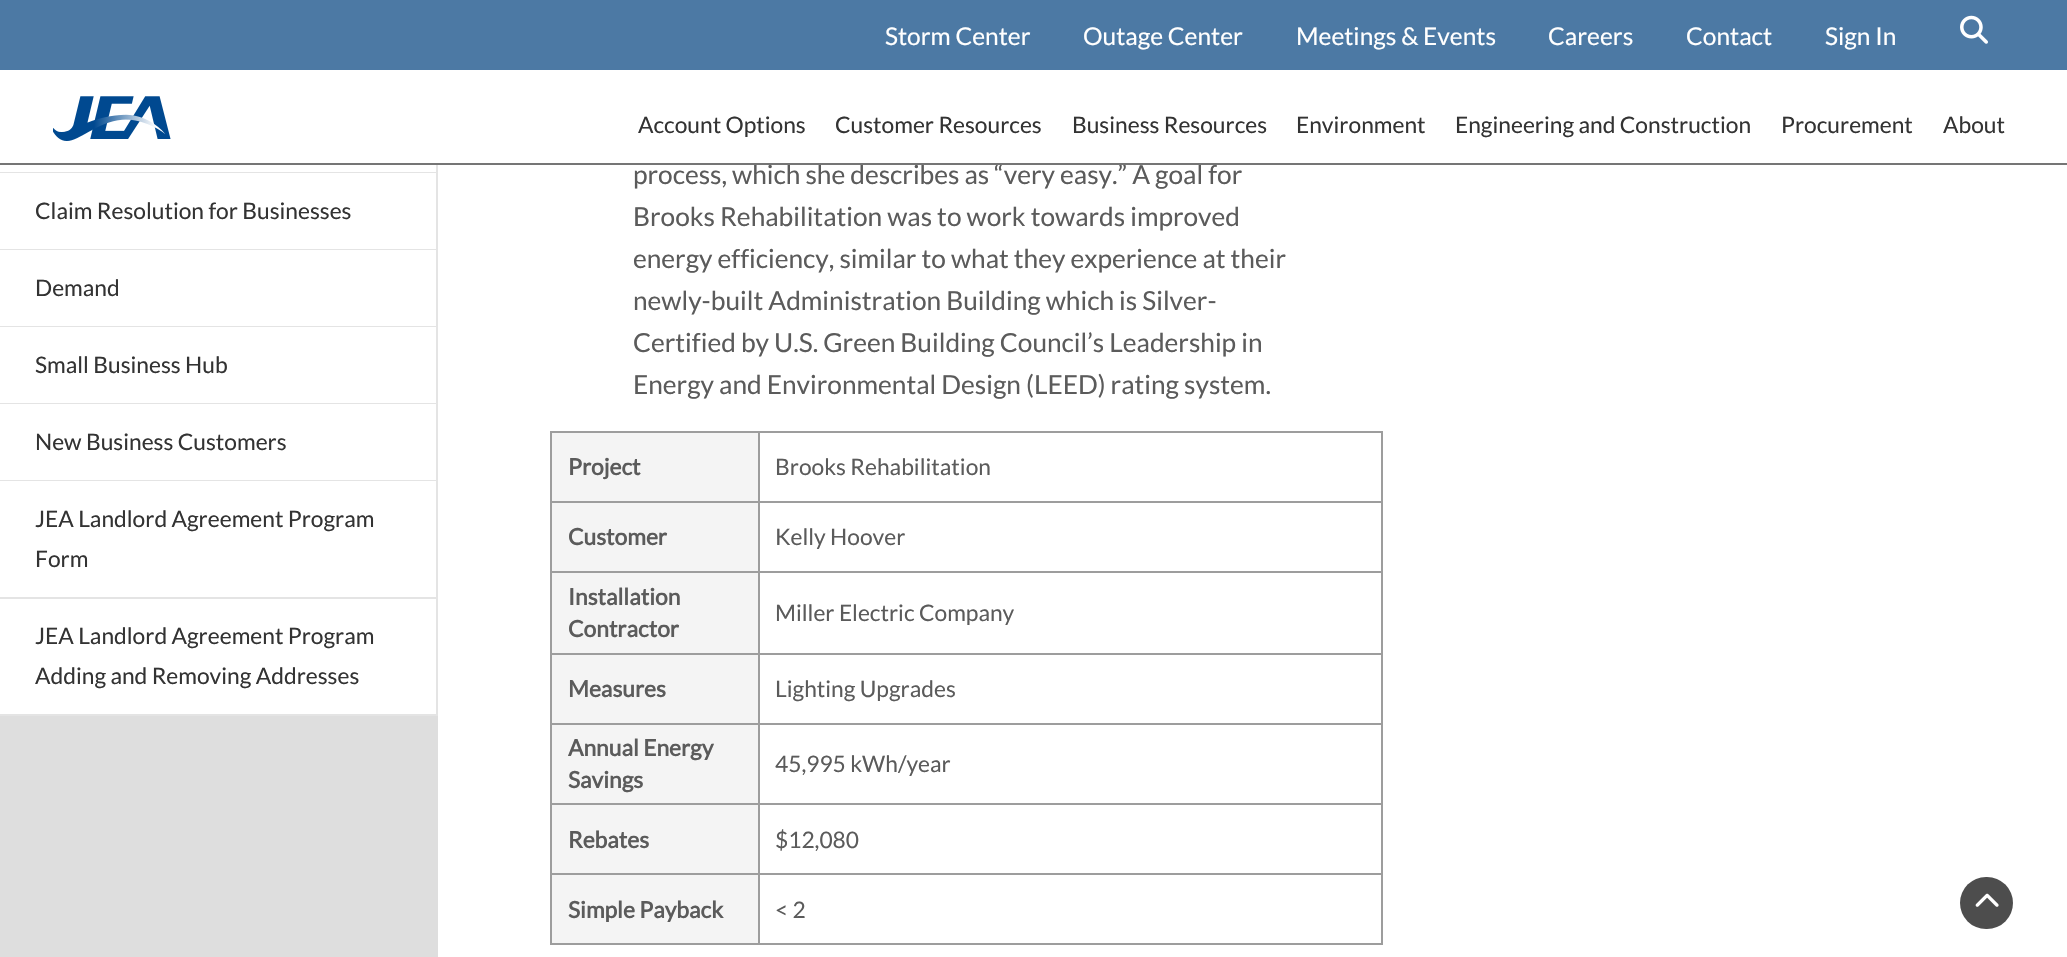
void draw(SkCanvas* c) {
SkPaint p;
p.setAntiAlias(true);
auto F=[&](const char* family, int weight, float size, bool italic = false){SkFontStyle style(weight, SkFontStyle::kNormal_Width,italic ? SkFontStyle::kItalic_Slant : SkFontStyle::kUpright_Slant);SkFont result(fontMgr->matchFamilyStyle(family, style), size);result.setSubpixel(true);return result;};
auto T=[&](const char* s, float x, float y, const SkFont& font){c->drawString(s, x, y, font, p);};
auto R=[&](float x, float y, float w, float h){c->drawRect(SkRect::MakeXYWH(x, y, w, h), p);};
auto Q=[&](float x, float y, float w, float h, float radius){c->drawRoundRect(SkRect::MakeXYWH(x, y, w, h), radius, radius, p);};
auto I=[&](const char* path, float x, float y, float w, float h){auto image = SkImages::DeferredFromEncodedData(SkData::MakeFromFileName(path));c->drawImageRect(image, SkRect::MakeXYWH(x, y, w, h), SkSamplingOptions());};
c->clear(0xffffffff);
p.setColor(0xff4c79a4);
R(0,0,2067,70);
auto f1 = F("Lato",400,24.5);
p.setColor(0xffffffff);
T("Storm Center",885,45,f1);
T("Outage Center",1083,45,f1);
T("Meetings & Events",1296,45,f1);
T("Careers",1548,45,f1);
T("Contact",1686,45,f1);
T("Sign In",1825,45,f1);
I("1.png",1960,15,28,29);
auto f2 = F("Lato",400,26.25);
p.setColor(0xff5b5b5b);
T("process, which she describes as “very easy.” A goal for",633,184,f2);
p.setColor(0xff757575);
R(0,163,2067,2);
I("2.png",53,96,118,45);
auto f3 = F("Lato",400,22.75);
p.setColor(0xff333333);
T("Account Options",638,133,f3);
T("Customer Resources",835,133,f3);
T("Business Resources",1072,133,f3);
T("Environment",1296,133,f3);
T("Engineering and Construction",1455,133,f3);
T("Procurement",1781,133,f3);
T("About",1943,133,f3);
p.setColor(0xffdedede);
R(0,716,438,241);
p.setColor(0xffe4e4e4);
R(436,165,2,551);
R(0,172,436,1);
R(0,249,436,1);
p.setColor(0xff333333);
T("Claim Resolution for Businesses",35,219,f3);
p.setColor(0xffe4e4e4);
R(0,326,436,1);
p.setColor(0xff333333);
T("Demand",35,296,f3);
p.setColor(0xffe4e4e4);
R(0,403,436,1);
p.setColor(0xff333333);
T("Small Business Hub",35,373,f3);
p.setColor(0xffe4e4e4);
R(0,480,436,1);
p.setColor(0xff333333);
T("New Business Customers",35,450,f3);
p.setColor(0xffe4e4e4);
R(0,597,436,2);
p.setColor(0xff333333);
T("JEA Landlord Agreement Program",35,527,f3);
T("Form",35,567,f3);
p.setColor(0xffe4e4e4);
R(0,714,436,2);
p.setColor(0xff333333);
T("JEA Landlord Agreement Program",35,644,f3);
T("Adding and Removing Addresses",35,684,f3);
p.setColor(0xff5b5b5b);
T("Brooks Rehabilitation was to work towards improved",633,226,f2);
T("energy efficiency, similar to what they experience at their",633,268,f2);
T("newly-built Administration Building which is Silver-",633,310,f2);
T("Certified by U.S. Green Building Council’s Leadership in",633,352,f2);
T("Energy and Environmental Design (LEED) rating system.",633,394,f2);
p.setColor(0xff9d9d9d);
R(550,431,833,2);
R(1381,431,2,514);
R(550,943,833,2);
R(550,431,2,514);
p.setColor(0xfff4f4f4);
R(552,433,206,68);
auto f4 = F("Lato",700,22.75);
p.setColor(0xff5b5b5b);
T("Project",568,475,f4);
p.setColor(0xff9d9d9d);
R(758,501,625,2);
R(758,571,625,2);
R(758,653,625,2);
R(758,723,625,2);
R(758,803,625,2);
R(758,873,625,2);
R(758,873,2,72);
R(550,873,210,2);
R(758,803,2,72);
R(550,803,210,2);
R(758,723,2,82);
R(550,723,210,2);
R(758,653,2,72);
R(550,653,210,2);
R(758,571,2,84);
R(550,571,210,2);
R(758,501,2,71);
R(550,501,210,2);
R(758,431,2,71);
p.setColor(0xff5b5b5b);
T("Brooks Rehabilitation",775,475,f3);
p.setColor(0xfff4f4f4);
R(552,503,206,68);
p.setColor(0xff5b5b5b);
T("Customer",568,545,f4);
T("Kelly Hoover",775,545,f3);
p.setColor(0xfff4f4f4);
R(552,573,206,80);
p.setColor(0xff5b5b5b);
T("Installation",568,605,f4);
T("Contractor",568,637,f4);
T("Miller Electric Company",775,621,f3);
p.setColor(0xfff4f4f4);
R(552,655,206,68);
p.setColor(0xff5b5b5b);
T("Measures",568,697,f4);
T("Lighting Upgrades",775,697,f3);
p.setColor(0xfff4f4f4);
R(552,725,206,78);
p.setColor(0xff5b5b5b);
T("Annual Energy",568,756,f4);
T("Savings",568,788,f4);
T("45,995 kWh/year",775,772,f3);
p.setColor(0xfff4f4f4);
R(552,805,206,68);
p.setColor(0xff5b5b5b);
T("Rebates",568,848,f4);
T("$12,080",775,848,f3);
p.setColor(0xfff4f4f4);
R(552,875,206,68);
p.setColor(0xff5b5b5b);
T("Simple Payback",568,918,f4);
T("< 2",775,918,f3);
p.setColor(0xff4d4d4d);
Q(1960,877,53,52,26);
I("3.png",1975,893,24,14);
}
